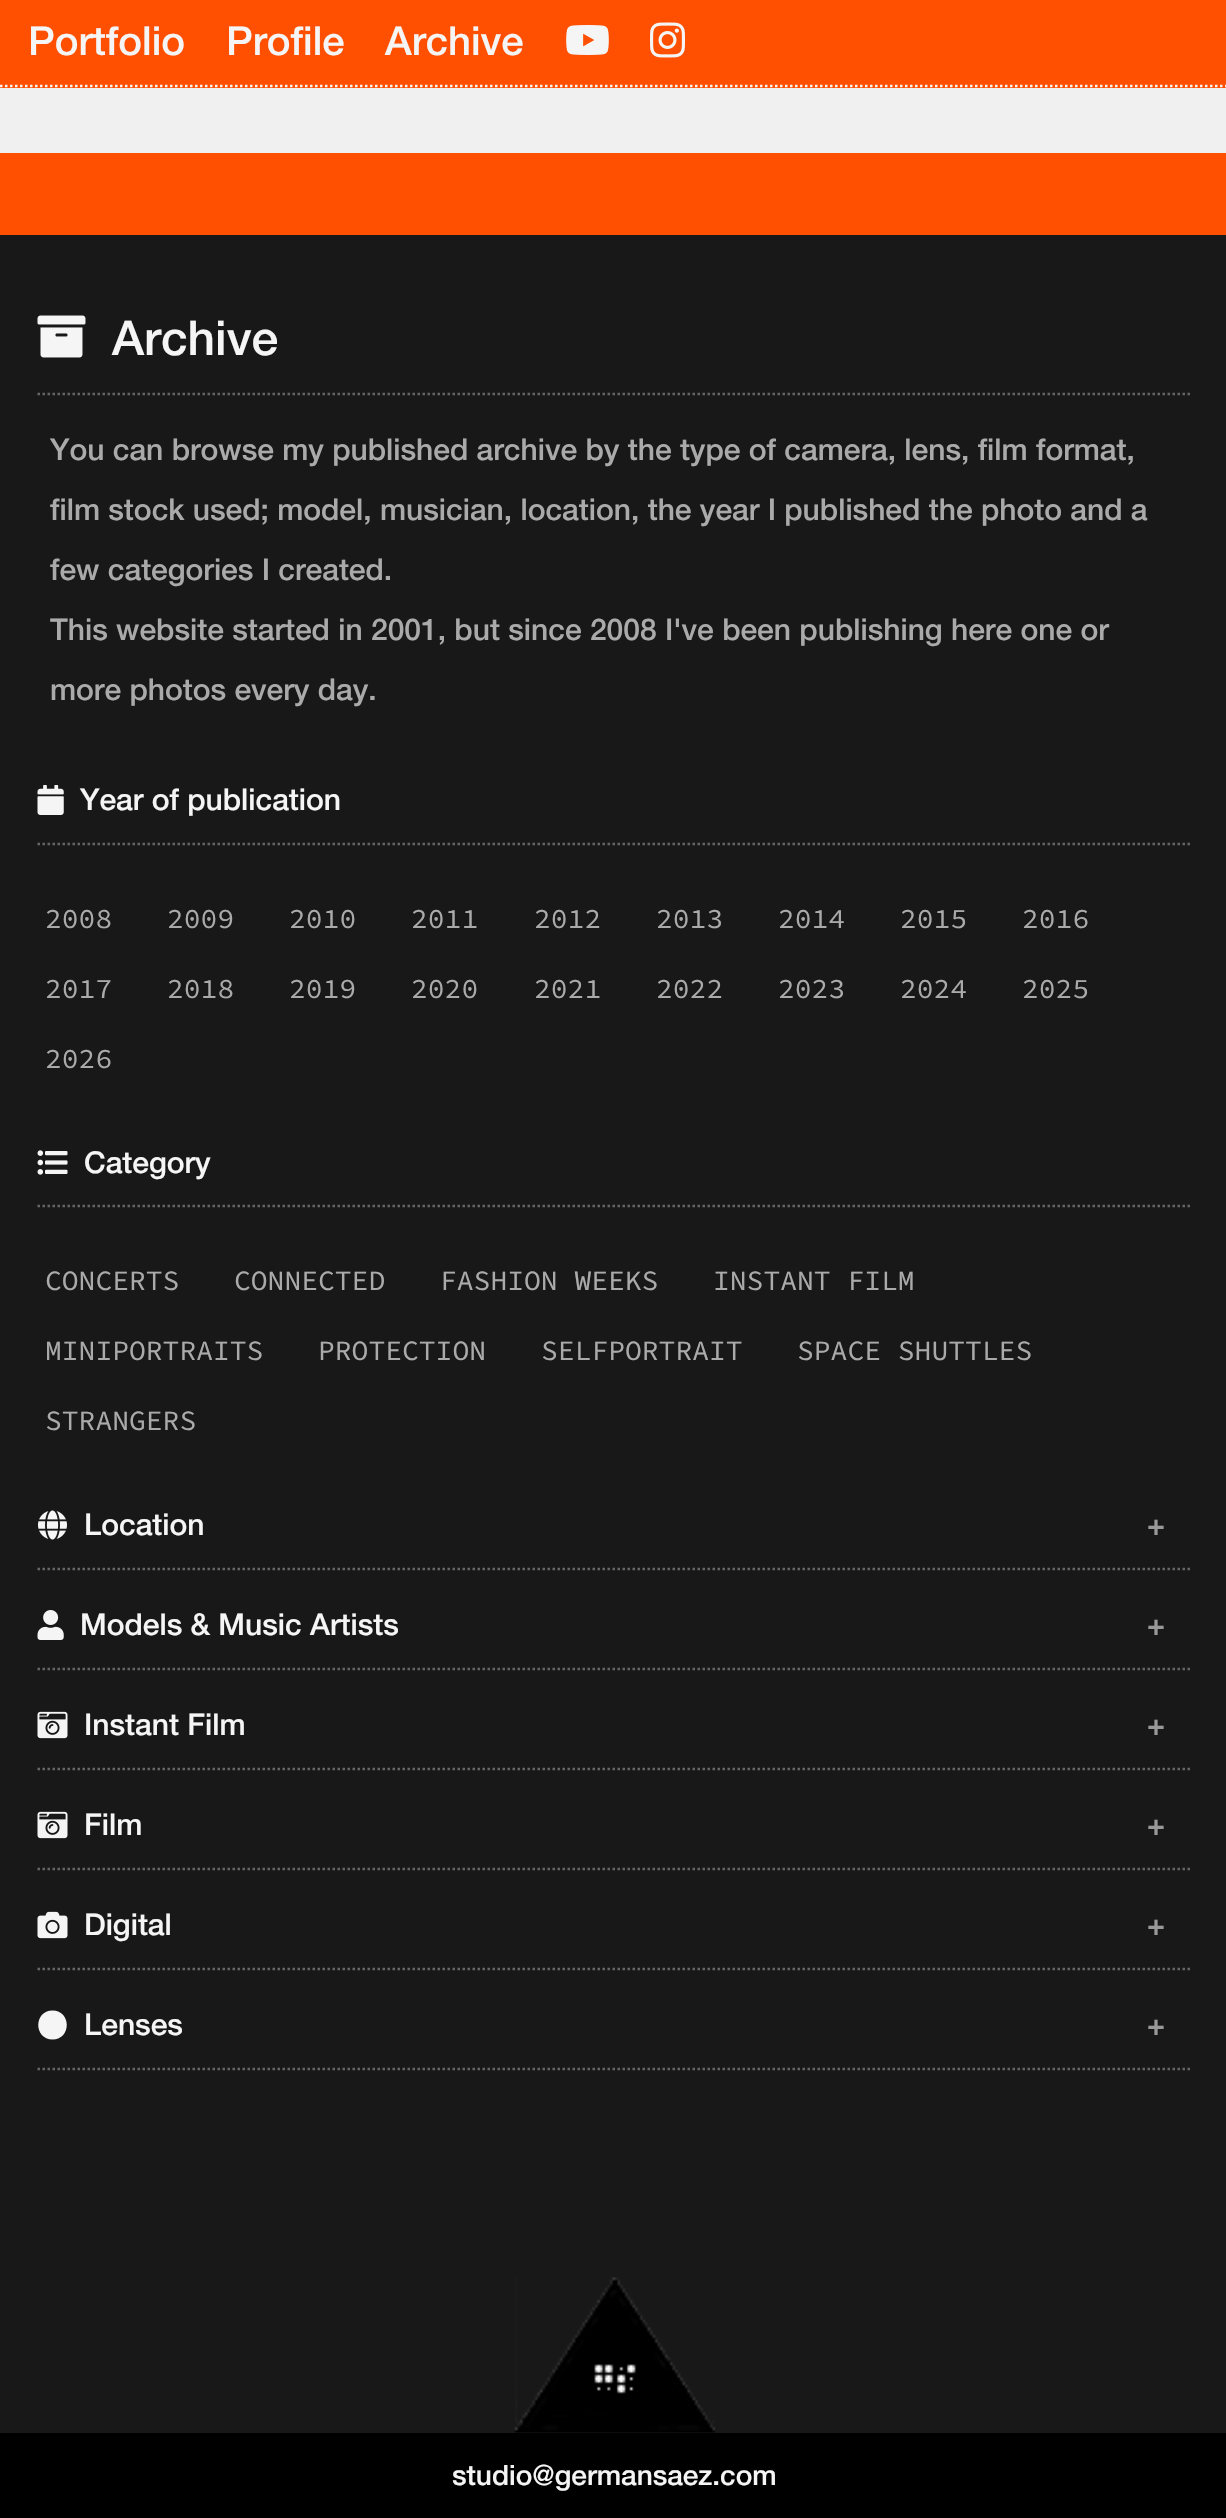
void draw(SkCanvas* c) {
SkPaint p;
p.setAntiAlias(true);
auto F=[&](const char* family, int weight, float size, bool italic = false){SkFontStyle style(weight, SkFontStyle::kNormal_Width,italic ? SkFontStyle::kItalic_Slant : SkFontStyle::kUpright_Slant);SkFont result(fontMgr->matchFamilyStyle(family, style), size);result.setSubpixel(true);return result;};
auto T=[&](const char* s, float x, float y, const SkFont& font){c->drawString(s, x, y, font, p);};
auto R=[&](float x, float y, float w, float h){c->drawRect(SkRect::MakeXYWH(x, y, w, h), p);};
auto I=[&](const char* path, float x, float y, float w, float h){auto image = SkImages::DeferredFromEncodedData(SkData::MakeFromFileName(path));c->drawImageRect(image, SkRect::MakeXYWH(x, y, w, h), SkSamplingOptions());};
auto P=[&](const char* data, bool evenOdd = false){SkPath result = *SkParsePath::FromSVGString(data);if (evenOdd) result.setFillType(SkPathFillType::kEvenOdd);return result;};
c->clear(0xff181818);
p.setColor(0xffff4f00);
R(0,0,1226,88);
p.setStroke(true);
p.setStrokeWidth(2.5);
p.setColor(0xfff5f5f5);
p.setPathEffect(SkDashPathEffect::Make({{2.5f,2.5f}}, 0));
c->drawPath(P("M0 86h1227.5"),p);
p.setPathEffect(nullptr);
auto f1 = F("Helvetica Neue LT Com",500,40);
p.setStroke(false);
T("Portfolio",28,55,f1);
T("Profile",226,55,f1);
T("Archive",385,55,f1);
I("1.png",566,25,43,30);
I("2.png",650,22,35,36);
p.setColor(0xfff0f0f0);
R(0,88,1226,65);
p.setColor(0xffff4f00);
R(0,153,1226,82);
p.setStroke(true);
p.setColor(0xff666666);
p.setPathEffect(SkDashPathEffect::Make({{2.5f,2.5f}}, 0));
c->drawPath(P("M37.5 394h1152.5"),p);
p.setPathEffect(nullptr);
I("3.png",37,315,49,43);
auto f2 = F("Helvetica Neue LT Com",500,48);
p.setStroke(false);
p.setColor(0xfff5f5f5);
T("Archive",112,355,f2);
auto f3 = F("Helvetica Neue LT Com",500,30);
p.setColor(0xffaaaaaa);
T("You can browse my published archive by the type of camera, lens, film format,",50,460,f3);
T("film stock used; model, musician, location, the year I published the photo and a",50,520,f3);
T("few categories I created.",50,580,f3);
T("This website started in 2001, but since 2008 I've been publishing here one or",50,640,f3);
T("more photos every day.",50,700,f3);
p.setStroke(true);
p.setColor(0xff666666);
p.setPathEffect(SkDashPathEffect::Make({{2.5f,2.5f}}, 0));
c->drawPath(P("M37.5 844h1152.5"),p);
p.setPathEffect(nullptr);
I("4.png",37,785,27,30);
p.setStroke(false);
p.setColor(0xfff5f5f5);
T("Year of publication",80,810,f3);
auto f4 = F("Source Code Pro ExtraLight",400,28);
p.setColor(0xffaaaaaa);
T("2008",45,928,f4);
T("2009",167,928,f4);
T("2010",289,928,f4);
T("2011",411,928,f4);
T("2012",534,928,f4);
T("2013",656,928,f4);
T("2014",778,928,f4);
T("2015",900,928,f4);
T("2016",1022,928,f4);
T("2017",45,998,f4);
T("2018",167,998,f4);
T("2019",289,998,f4);
T("2020",411,998,f4);
T("2021",534,998,f4);
T("2022",656,998,f4);
T("2023",778,998,f4);
T("2024",900,998,f4);
T("2025",1022,998,f4);
T("2026",45,1068,f4);
p.setStroke(true);
p.setColor(0xff666666);
p.setPathEffect(SkDashPathEffect::Make({{2.5f,2.5f}}, 0));
c->drawPath(P("M37.5 1206h1152.5"),p);
p.setPathEffect(nullptr);
I("5.png",37,1150,31,25);
p.setStroke(false);
p.setColor(0xfff5f5f5);
T("Category",84,1173,f3);
p.setColor(0xffaaaaaa);
T("CONCERTS",45,1290,f4);
T("CONNECTED",234,1290,f4);
T("FASHION WEEKS",440,1290,f4);
T("INSTANT FILM",713,1290,f4);
T("MINIPORTRAITS",45,1360,f4);
T("PROTECTION",318,1360,f4);
T("SELFPORTRAIT",541,1360,f4);
T("SPACE SHUTTLES",797,1360,f4);
T("STRANGERS",45,1430,f4);
p.setStroke(true);
p.setColor(0xff666666);
p.setPathEffect(SkDashPathEffect::Make({{2.5f,2.5f}}, 0));
c->drawPath(P("M37.5 1569h1152.5"),p);
p.setPathEffect(nullptr);
I("6.png",38,1510,29,30);
p.setStroke(false);
p.setColor(0xfff5f5f5);
T("Location",84,1535,f3);
p.setColor(0xff999999);
T("+",1147,1535,f3);
p.setStroke(true);
p.setColor(0xff666666);
p.setPathEffect(SkDashPathEffect::Make({{2.5f,2.5f}}, 0));
c->drawPath(P("M37.5 1669h1152.5"),p);
p.setPathEffect(nullptr);
I("7.png",37,1610,27,30);
p.setStroke(false);
p.setColor(0xfff5f5f5);
T("Models & Music Artists",80,1635,f3);
p.setColor(0xff999999);
T("+",1147,1635,f3);
p.setStroke(true);
p.setColor(0xff666666);
p.setPathEffect(SkDashPathEffect::Make({{2.5f,2.5f}}, 0));
c->drawPath(P("M37.5 1769h1152.5"),p);
p.setPathEffect(nullptr);
I("8.png",37,1711,31,28);
p.setStroke(false);
p.setColor(0xfff5f5f5);
T("Instant Film",84,1735,f3);
p.setColor(0xff999999);
T("+",1147,1735,f3);
p.setStroke(true);
p.setColor(0xff666666);
p.setPathEffect(SkDashPathEffect::Make({{2.5f,2.5f}}, 0));
c->drawPath(P("M37.5 1869h1152.5"),p);
p.setPathEffect(nullptr);
I("8.png",37,1811,31,28);
p.setStroke(false);
p.setColor(0xfff5f5f5);
T("Film",84,1835,f3);
p.setColor(0xff999999);
T("+",1147,1835,f3);
p.setStroke(true);
p.setColor(0xff666666);
p.setPathEffect(SkDashPathEffect::Make({{2.5f,2.5f}}, 0));
c->drawPath(P("M37.5 1969h1152.5"),p);
p.setPathEffect(nullptr);
I("9.png",37,1911,31,28);
p.setStroke(false);
p.setColor(0xfff5f5f5);
T("Digital",84,1935,f3);
p.setColor(0xff999999);
T("+",1147,1935,f3);
p.setStroke(true);
p.setColor(0xff666666);
p.setPathEffect(SkDashPathEffect::Make({{2.5f,2.5f}}, 0));
c->drawPath(P("M37.5 2069h1152.5"),p);
p.setPathEffect(nullptr);
p.setStroke(false);
p.setColor(0xfff5f5f5);
c->drawPath(P("M52.5 2010.5c-19 0-19 29 0 29c19 0 19-29 0-29z"),p);
T("Lenses",84,2035,f3);
p.setColor(0xff999999);
T("+",1147,2035,f3);
I("10.png",514,2277,201,156);
p.setColor(0xff000000);
R(0,2433,1226,85);
auto f5 = F("Helvetica Neue LT Com",500,28);
p.setColor(0xfff5f5f5);
T("studio@germansaez.com",452,2485,f5);
}
